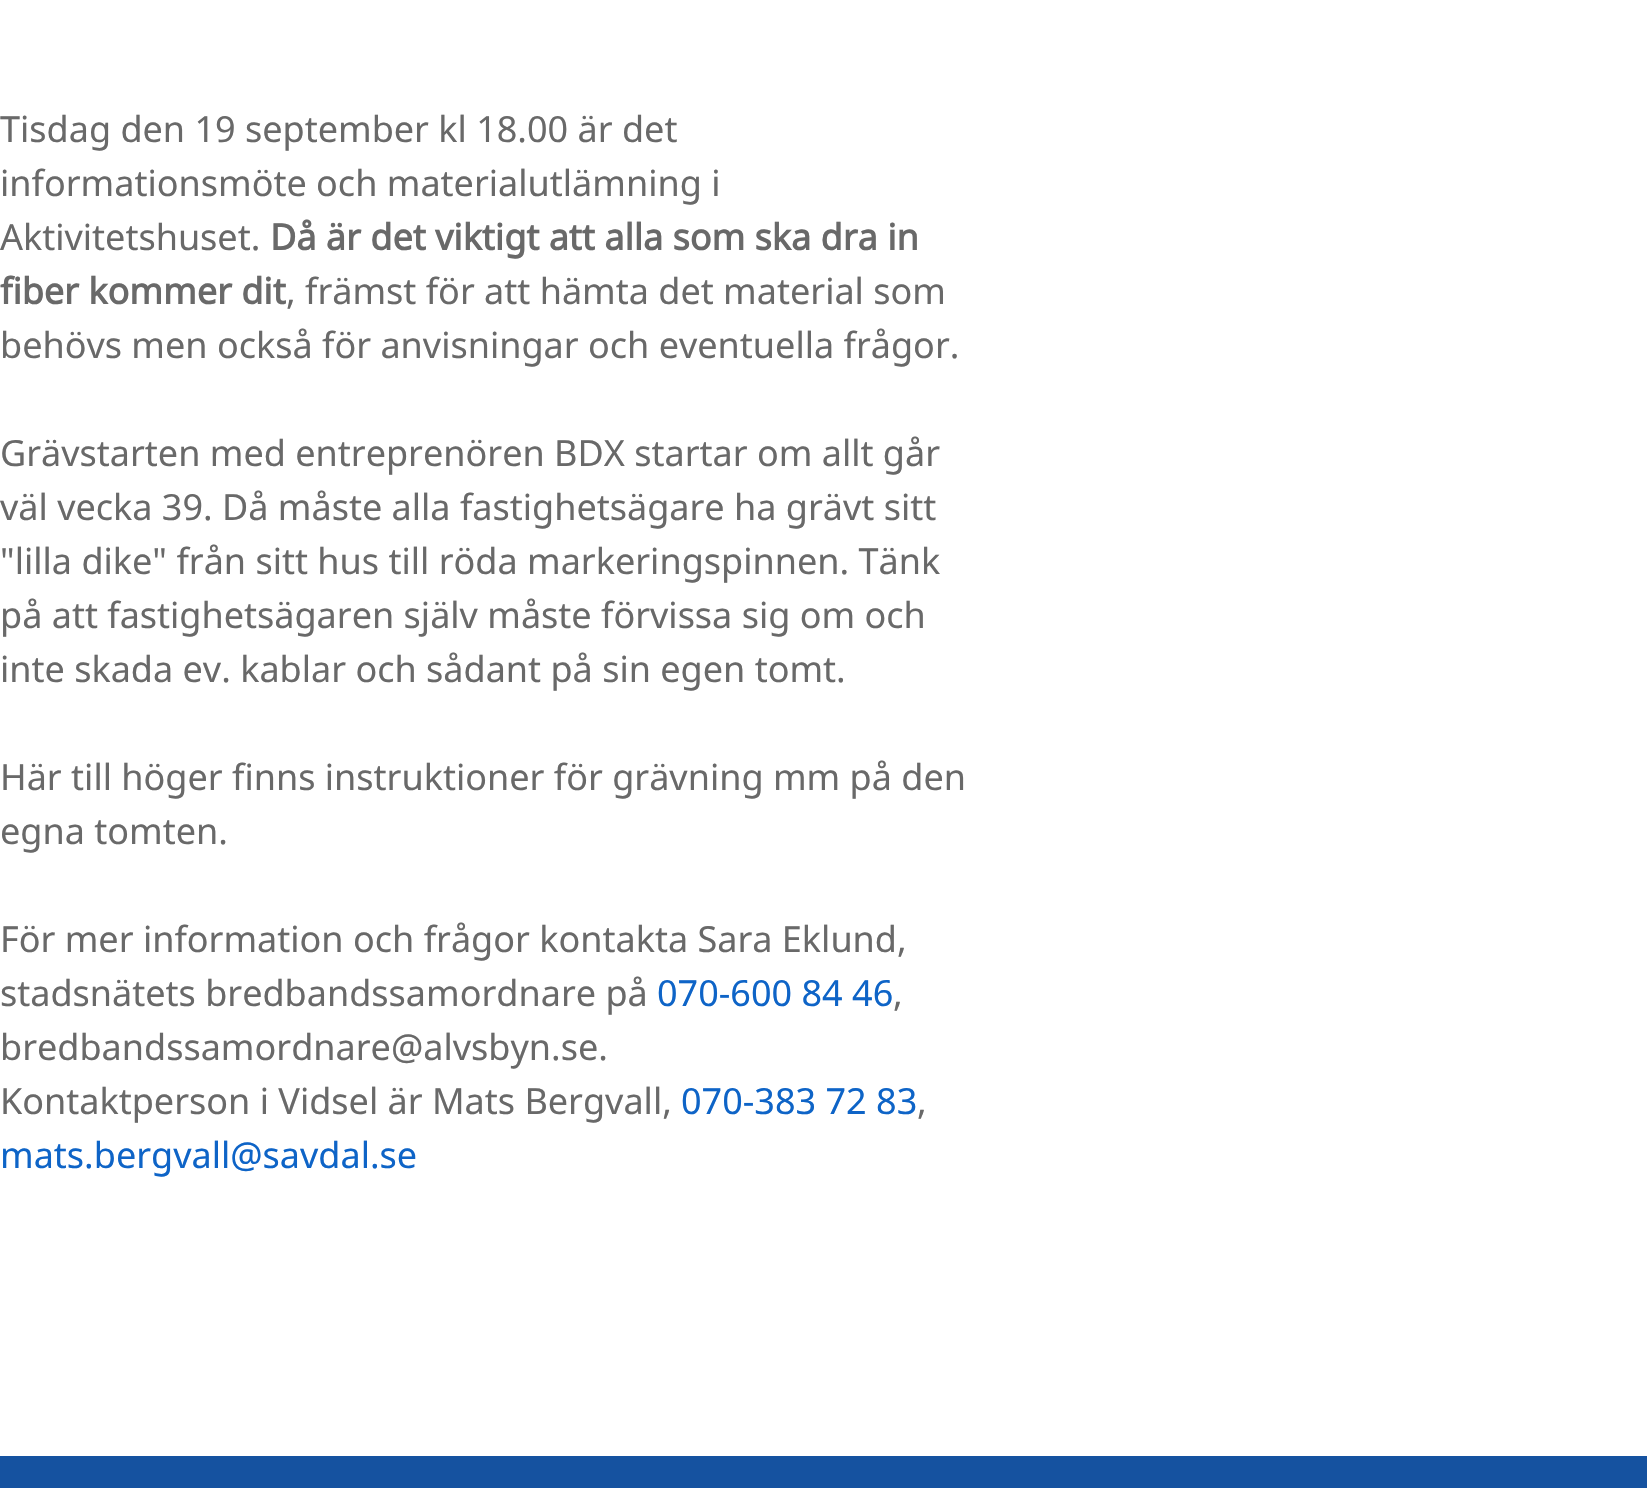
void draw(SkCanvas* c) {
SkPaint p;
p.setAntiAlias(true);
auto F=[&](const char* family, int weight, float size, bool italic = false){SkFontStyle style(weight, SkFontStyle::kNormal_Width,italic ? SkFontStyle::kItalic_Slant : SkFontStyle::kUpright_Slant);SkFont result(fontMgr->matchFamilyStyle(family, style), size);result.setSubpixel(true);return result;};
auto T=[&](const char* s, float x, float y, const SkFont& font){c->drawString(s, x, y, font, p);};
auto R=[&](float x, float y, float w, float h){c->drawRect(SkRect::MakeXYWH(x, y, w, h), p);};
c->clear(0xffffffff);
auto f1 = F("Noto Sans",400,36);
p.setColor(0xff696969);
T("Tisdag den 19 september kl 18.00 är det",0,142,f1);
T("informationsmöte och materialutlämning i",0,196,f1);
T("Aktivitetshuset.",0,250,f1);
auto f2 = F("Noto Sans",700,36);
T("Då är det viktigt att alla som ska dra in",270,250,f2);
T("fiber kommer dit",0,304,f2);
T(", främst för att hämta det material som",286,304,f1);
T("behövs men också för anvisningar och eventuella frågor.",0,358,f1);
T("Grävstarten med entreprenören BDX startar om allt går",0,466,f1);
T("väl vecka 39. Då måste alla fastighetsägare ha grävt sitt",0,520,f1);
T("\"lilla dike\" från sitt hus till röda markeringspinnen. Tänk",0,574,f1);
T("på att fastighetsägaren själv måste förvissa sig om och",0,628,f1);
T("inte skada ev. kablar och sådant på sin egen tomt.",0,682,f1);
T("Här till höger finns instruktioner för grävning mm på den",0,790,f1);
T("egna tomten.",0,844,f1);
T("För mer information och frågor kontakta Sara Eklund,",0,952,f1);
T("stadsnätets bredbandssamordnare på",0,1006,f1);
p.setColor(0xff0e64c7);
T("070-600 84 46",657,1006,f1);
p.setColor(0xff696969);
T(",",893,1006,f1);
T("bredbandssamordnare@alvsbyn.se.",0,1060,f1);
T("Kontaktperson i Vidsel är Mats Bergvall,",0,1114,f1);
p.setColor(0xff0e64c7);
T("070-383 72 83",681,1114,f1);
p.setColor(0xff696969);
T(",",917,1114,f1);
p.setColor(0xff0e64c7);
T("mats.bergvall@savdal.se",0,1168,f1);
p.setColor(0xff1552a0);
R(0,1456,1647,32);
}
